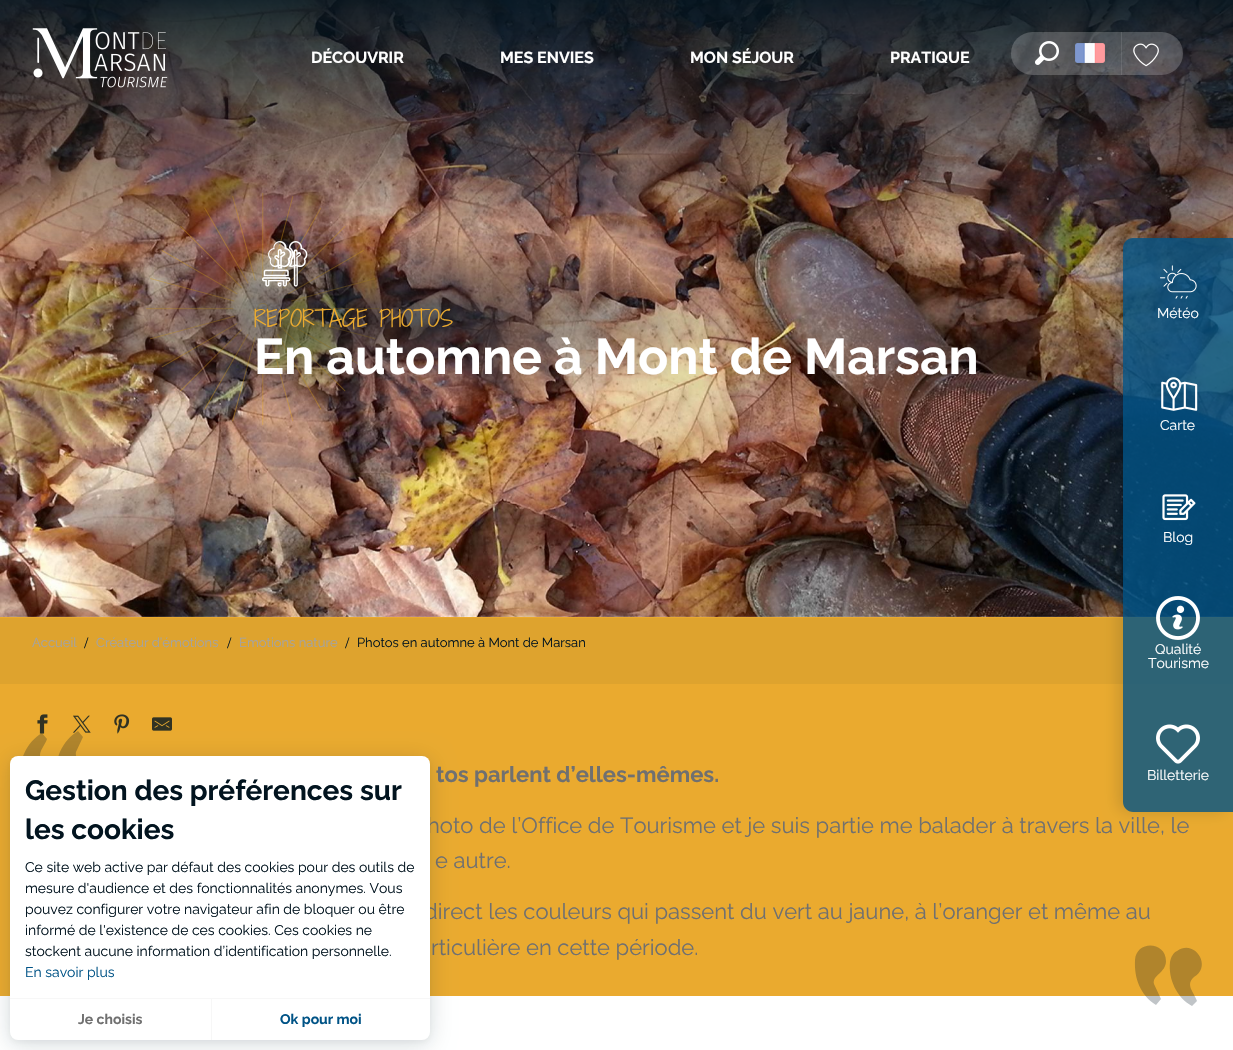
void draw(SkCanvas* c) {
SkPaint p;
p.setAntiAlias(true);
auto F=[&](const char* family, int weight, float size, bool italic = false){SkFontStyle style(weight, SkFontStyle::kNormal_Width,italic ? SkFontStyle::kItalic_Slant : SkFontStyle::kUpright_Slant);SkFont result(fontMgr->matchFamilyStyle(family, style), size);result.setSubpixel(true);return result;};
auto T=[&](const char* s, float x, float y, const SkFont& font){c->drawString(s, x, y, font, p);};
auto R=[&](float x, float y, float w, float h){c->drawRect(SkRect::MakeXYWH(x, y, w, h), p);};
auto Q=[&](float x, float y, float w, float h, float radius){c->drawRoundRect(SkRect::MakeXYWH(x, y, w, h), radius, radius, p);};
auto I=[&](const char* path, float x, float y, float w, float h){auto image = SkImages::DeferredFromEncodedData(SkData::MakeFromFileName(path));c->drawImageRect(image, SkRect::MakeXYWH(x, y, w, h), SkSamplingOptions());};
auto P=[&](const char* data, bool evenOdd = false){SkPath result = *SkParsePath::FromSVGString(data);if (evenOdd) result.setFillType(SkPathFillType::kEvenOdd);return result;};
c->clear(0xffffffff);
I("10.png",0,0,1233,617);
I("12.png",146,193,234,233);
{
const SkColor colors[] = {0x9902141f,0x4d02141f,0x0002141f};
const float stops[] = {0,.32,.65};
SkMatrix m = SkMatrix::Translate(385,319).preScale(566,141);
p.setShader(SkGradientShader::MakeRadial({0, 0}, 1, colors, stops, 3, SkTileMode::kClamp, 0, &m));
p.setAlpha(255);
}
R(31,231,708,176);
I("11.png",262,241,46,46);
{
const SkColor colors[] = {0xe602141f,0x0002141f};
const float stops[] = {0,1};
const SkPoint ends[] = {{617,0}, {617,250}};
p.setShader(SkGradientShader::MakeLinear(ends, colors, stops, 2, SkTileMode::kClamp));
p.setAlpha(255);
}
R(0,0,1233,244);
I("1.png",32,28,136,60);
auto f1 = F("Raleway",700,16);
p.setShader(nullptr);
p.setColor(0xffffffff);
T("DÉCOUVRIR",311,63,f1);
T("MES ENVIES",500,63,f1);
T("MON SÉJOUR",690,63,f1);
T("PRATIQUE",890,63,f1);
p.setColor(0x33ffffff);
Q(1011,32,172,43,21.5);
I("2.png",1035,41,24,24);
I("3.png",1075,43,30,20);
p.setColor(0x1affffff);
R(1121,32,1,43);
I("4.png",1133,43,26,24);
p.setColor(0xffeaaa2f);
R(0,617,1233,379);
p.setColor(0xffdea32e);
R(0,618,1233,66);
c->save();
c->clipPath(P("M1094 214h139v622h-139zm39 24h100v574h-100c-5.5 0-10-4.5-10-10v-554c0-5.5 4.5-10 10-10z",true),true);
p.setColor(0x2602141f);
p.setMaskFilter(SkMaskFilter::MakeBlur(kNormal_SkBlurStyle, 7.5));
c->drawRoundRect(SkRect::MakeXYWH(1118,238,110,574),10,10,p);
p.setMaskFilter(nullptr);
c->restore();
p.setColor(0xcc005386);
c->drawPath(P("M1133 238h100v574h-100c-5.5 0-10-4.5-10-10v-554c0-5.5 4.5-10 10-10z"),p);
I("5.png",1160,265,37,34);
auto f2 = F("Raleway",400,14);
p.setColor(0xffffffff);
T("Météo",1157,318,f2);
I("6.png",1161,377,37,34);
T("Carte",1160,430,f2);
I("7.png",1162,494,34,27);
T("Blog",1163,542,f2);
I("8.png",1156,596,44,44);
T("Qualité",1155,654,f2);
T("Tourisme",1148,668,f2);
I("9.png",1156,724,44,40);
T("Billetterie",1147,780,f2);
auto f3 = F("Shadows Into Light Two",300,22);
p.setColor(0xffeaaa2f);
T("REPORTAGE PHOTOS",254,327,f3);
auto f4 = F("Raleway",700,50);
p.setColor(0xffffffff);
T("En automne à Mont de Marsan",254,374,f4);
auto f5 = F("Raleway",400,13);
p.setColor(0xffa3a3a3);
T("Accueil",32,647,f5);
auto f6 = F("Liberation Serif",400,16);
p.setColor(0xff02141f);
T("/",84,648,f6);
p.setColor(0xffa3a3a3);
T("Créateur d’émotions",96,647,f5);
p.setColor(0xff02141f);
T("/",227,648,f6);
p.setColor(0xffa3a3a3);
T("Emotions nature",239,647,f5);
p.setColor(0xff02141f);
T("/",345,648,f6);
T("Photos en automne à Mont de Marsan",357,647,f5);
I("13.png",37,714,11,20);
I("14.png",73,715,18,18);
I("15.png",114,714,16,20);
I("16.png",152,717,20,14);
p.setColor(0x4002141f);
c->drawPath(P("M44 763c-9-9 0-15 3-24l-5-6c-15 9-24 27-21 45c0 4 2 8 6 11c17 13 36-15 17-26zm44 12c0 19-30 20-32 1c-1-18 6-35 22-45l5 6l-7 15c-2 9 12 11 12 23z"),p);
auto f7 = F("Raleway",700,22);
p.setColor(0xff707070);
T("tos parlent d’elles-mêmes.",436,782,f7);
auto f8 = F("Raleway",400,22);
T("hoto de l’Office de Tourisme et je suis partie me balader à travers la ville, le",427,833,f8);
T("e autre.",435,868,f8);
T("direct les couleurs qui passent du vert au jaune, à l’oranger et même au",424,919,f8);
T("rticulière en cette période.",431,955,f8);
p.setColor(0x4002141f);
c->drawPath(P("M1166 961c0-20-30-21-31-1c-1 18 5 35 21 45l5-6l-7-15c-2-9 12-11 12-23zm28 16c-9 8 0 15 3 24l-5 5c-15-8-24-27-22-44c1-5 3-9 7-11c17-13 36 15 17 26z"),p);
p.setColor(0x0d02141f);
p.setMaskFilter(SkMaskFilter::MakeBlur(kNormal_SkBlurStyle, 3));
c->drawRoundRect(SkRect::MakeXYWH(10,758,420,284),8,8,p);
p.setMaskFilter(nullptr);
p.setColor(0x2602141f);
p.setMaskFilter(SkMaskFilter::MakeBlur(kNormal_SkBlurStyle, 12));
c->drawRoundRect(SkRect::MakeXYWH(10,760,420,284),8,8,p);
p.setMaskFilter(nullptr);
p.setColor(0xffffffff);
Q(10,756,420,284,8);
auto f9 = F("Raleway",700,28);
p.setColor(0xff02141f);
T("Gestion des préférences sur",25,800,f9);
T("les cookies",25,839,f9);
T("Ce site web active par défaut des cookies pour des outils de",25,872,f2);
T("mesure d'audience et des fonctionnalités anonymes. Vous",25,893,f2);
T("pouvez configurer votre navigateur afin de bloquer ou être",25,914,f2);
T("informé de l'existence de ces cookies. Ces cookies ne",25,935,f2);
T("stockent aucune information d’identification personnelle.",25,956,f2);
p.setColor(0xff005386);
T("En savoir plus",25,977,f2);
p.setColor(0xfff7f7f7);
R(10,998,420,1);
R(211,999,1,41);
auto f10 = F("Raleway",700,14);
p.setColor(0xff707070);
T("Je choisis",78,1024,f10);
p.setColor(0xff005386);
T("Ok pour moi",280,1024,f10);
}
